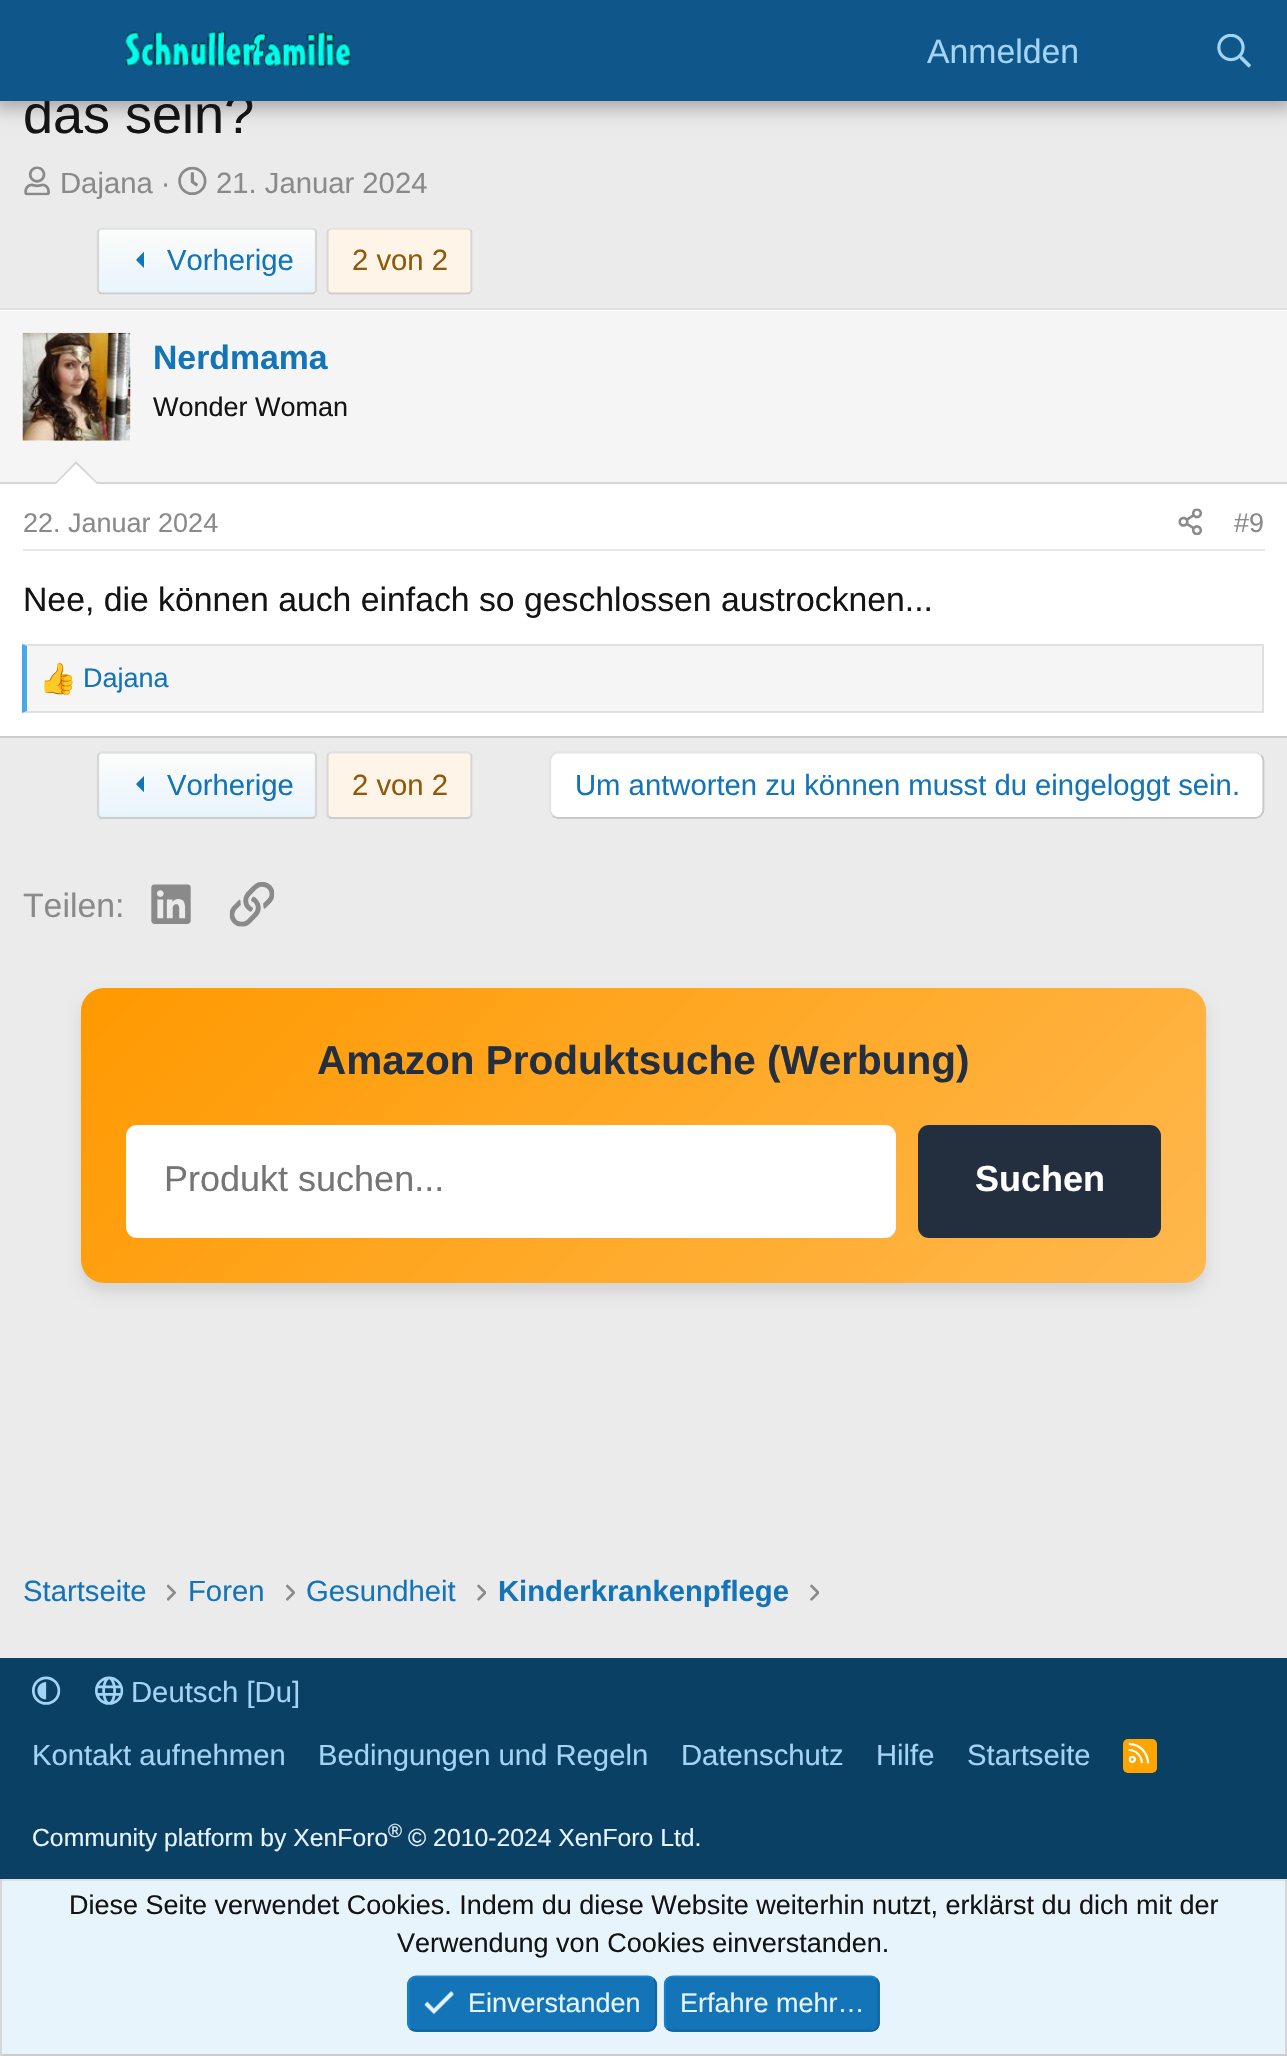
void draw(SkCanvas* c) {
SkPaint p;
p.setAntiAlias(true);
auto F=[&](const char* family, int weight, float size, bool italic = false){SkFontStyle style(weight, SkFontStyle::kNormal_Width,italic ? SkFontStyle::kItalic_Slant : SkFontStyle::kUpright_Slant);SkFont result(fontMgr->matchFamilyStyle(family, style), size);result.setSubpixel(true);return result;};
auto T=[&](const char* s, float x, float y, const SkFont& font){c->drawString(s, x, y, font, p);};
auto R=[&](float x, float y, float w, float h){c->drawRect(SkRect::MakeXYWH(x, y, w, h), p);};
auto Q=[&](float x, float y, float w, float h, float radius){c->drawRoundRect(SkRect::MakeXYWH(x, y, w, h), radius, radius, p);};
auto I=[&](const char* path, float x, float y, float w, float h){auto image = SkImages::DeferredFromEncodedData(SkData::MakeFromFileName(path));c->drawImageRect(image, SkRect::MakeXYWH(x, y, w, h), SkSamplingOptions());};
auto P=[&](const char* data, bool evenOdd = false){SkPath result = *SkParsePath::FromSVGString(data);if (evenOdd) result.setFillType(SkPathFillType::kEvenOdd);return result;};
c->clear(0xffebebeb);
p.setColor(0x4d000000);
p.setMaskFilter(SkMaskFilter::MakeBlur(kNormal_SkBlurStyle, 9));
c->drawRect(SkRect::MakeXYWH(-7,-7,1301,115),p);
p.setMaskFilter(nullptr);
auto f1 = F("Liberation Sans",400,54);
p.setColor(0xff141414);
T("das sein?",23,133,f1);
p.setColor(0xff0f578a);
R(0,0,1287,101);
I("1.png",125,30,226,38);
auto f2 = F("Liberation Sans",400,33.75);
p.setColor(0xffa3d4f5);
T("Anmelden",927,63,f2);
I("2.png",1217,34,34,34);
I("3.png",24,166,26,30);
auto f3 = F("Liberation Sans",400,29.25);
p.setColor(0xff8a8a8a);
T("Dajana ·",60,193,f3);
I("4.png",178,166,29,29);
T("21. Januar 2024",216,193,f3);
c->save();
c->clipPath(P("M102 227h210c3 0 5 2 5 5v58c0 3-2 5-5 5h-210c-3 0-5-2-5-5v-58c0-3 2-5 5-5z"),true);
{
const SkColor colors[] = {0xffe8f4fc,0xfffcfcfb};
const float stops[] = {0,1};
const SkPoint ends[] = {{207,230}, {207,167}};
p.setShader(SkGradientShader::MakeLinear(ends, colors, stops, 2, SkTileMode::kClamp));
p.setAlpha(255);
}
R(97,227,220,3);
{
const SkColor colors[] = {0xffe8f4fc,0xfffcfcfb};
const float stops[] = {0,1};
const SkPoint ends[] = {{207,293}, {207,230}};
p.setShader(SkGradientShader::MakeLinear(ends, colors, stops, 2, SkTileMode::kClamp));
p.setAlpha(255);
}
R(97,230,220,63);
{
const SkColor colors[] = {0xffe8f4fc,0xfffcfcfb};
const float stops[] = {0,1};
const SkPoint ends[] = {{207,356}, {207,293}};
p.setShader(SkGradientShader::MakeLinear(ends, colors, stops, 2, SkTileMode::kClamp));
p.setAlpha(255);
}
R(97,293,220,2);
c->restore();
p.setStroke(true);
p.setStrokeWidth(2.2);
p.setShader(nullptr);
p.setColor(0xffe0e0e0);
c->drawPath(P("M99 229.5l2-1h212l2 1"),p);
p.setColor(0xffd6d6d6);
c->drawPath(P("M315 229.5l1 2v59l-1 2"),p);
p.setColor(0xffcccccc);
c->drawPath(P("M315 292.5l-2 1h-212l-2-1"),p);
p.setColor(0xffd6d6d6);
c->drawPath(P("M99 292.5l-1-2v-59l1-2"),p);
I("5.png",136,251,8,17);
p.setStroke(false);
p.setColor(0xff1474b8);
T("Vorherige",167,270,f3);
p.setColor(0xfffef4e7);
Q(326,227,147,68,5);
p.setStroke(true);
p.setColor(0xffe0e0e0);
c->drawPath(P("M328.5 229.5l2.5-1h137l2.5 1"),p);
p.setColor(0xffd6d6d6);
c->drawPath(P("M470.5 229.5l1 2v59l-1 2"),p);
p.setColor(0xffcccccc);
c->drawPath(P("M470.5 292.5l-2.5 1h-137l-2.5-1"),p);
p.setColor(0xffd6d6d6);
c->drawPath(P("M328.5 292.5l-1-2v-59l1-2"),p);
p.setStroke(false);
p.setColor(0xff915808);
T("2 von 2",352,270,f3);
p.setColor(0xffffffff);
R(0,310,1287,426);
p.setColor(0xffe0e0e0);
R(0,308,1287,2);
p.setColor(0xffcccccc);
R(0,736,1287,2);
p.setColor(0xfff5f5f5);
R(0,311,1287,171);
p.setColor(0xffd6d6d6);
R(0,482,1287,2);
p.setColor(0xffffffff);
R(23,333,108,108);
I("6.png",22,332,109,109);
auto f4 = F("Liberation Sans",700,33.75);
p.setColor(0xff1474b8);
T("Nerdmama",153,369,f4);
auto f5 = F("Liberation Sans",400,27);
p.setColor(0xff141414);
T("Wonder Woman",153,416,f5);
p.setColor(0xffd6d6d6);
c->drawPath(P("M99 484h-45l22-23z"),p);
p.setColor(0xffffffff);
c->drawPath(P("M97 484h-41l20-20z"),p);
p.setColor(0xffe6e6e6);
R(23,549,1242,2);
p.setColor(0xff8a8a8a);
T("22. Januar 2024",23,532,f5);
I("7.png",1178,508,24,27);
T("#9",1234,532,f5);
p.setColor(0xff141414);
T("Nee, die können auch einfach so geschlossen austrocknen...",23,611,f2);
p.setColor(0xfff5f5f5);
R(27,646,1235,65);
p.setColor(0xffe0e0e0);
c->drawPath(P("M22 644h1242l-2 2h-1235z"),p);
R(1262,644,2,69);
c->drawPath(P("M1264 713h-1242l5-2h1235z"),p);
p.setColor(0xff47a7eb);
c->drawPath(P("M22 713v-69l5 2v65z"),p);
I("8.png",44,663,29,32);
p.setColor(0xff1474b8);
T("Dajana",83,687,f5);
c->save();
c->clipPath(P("M102 752h210c3 0 5 2 5 5v57c0 3-2 5-5 5h-210c-3 0-5-2-5-5v-57c0-3 2-5 5-5z"),true);
{
const SkColor colors[] = {0xffe8f4fc,0xfffcfcfb};
const float stops[] = {0,1};
const SkPoint ends[] = {{207,754}, {207,691}};
p.setShader(SkGradientShader::MakeLinear(ends, colors, stops, 2, SkTileMode::kClamp));
p.setAlpha(255);
}
R(97,752,220,2);
{
const SkColor colors[] = {0xffe8f4fc,0xfffcfcfb};
const float stops[] = {0,1};
const SkPoint ends[] = {{207,817}, {207,754}};
p.setShader(SkGradientShader::MakeLinear(ends, colors, stops, 2, SkTileMode::kClamp));
p.setAlpha(255);
}
R(97,754,220,63);
c->restore();
p.setStroke(true);
p.setShader(nullptr);
p.setColor(0xffe0e0e0);
c->drawPath(P("M99 753.5l2-1h212l2 1"),p);
p.setColor(0xffd6d6d6);
c->drawPath(P("M315 753.5l1 2v59.5l-1 2"),p);
p.setColor(0xffcccccc);
c->drawPath(P("M315 817l-2 1h-212l-2-1"),p);
p.setColor(0xffd6d6d6);
c->drawPath(P("M99 817l-1-2v-59.5l1-2"),p);
I("9.png",136,776,8,17);
p.setStroke(false);
p.setColor(0xff1474b8);
T("Vorherige",167,795,f3);
p.setColor(0xfffef4e7);
Q(326,752,147,67,5);
p.setStroke(true);
p.setColor(0xffe0e0e0);
c->drawPath(P("M328.5 753.5l2.5-1h137l2.5 1"),p);
p.setColor(0xffd6d6d6);
c->drawPath(P("M470.5 753.5l1 2v59.5l-1 2"),p);
p.setColor(0xffcccccc);
c->drawPath(P("M470.5 817l-2.5 1h-137l-2.5-1"),p);
p.setColor(0xffd6d6d6);
c->drawPath(P("M328.5 817l-1-2v-59.5l1-2"),p);
p.setStroke(false);
p.setColor(0xff915808);
T("2 von 2",352,795,f3);
p.setColor(0xffffffff);
Q(549,752,716,67,9);
p.setStroke(true);
p.setColor(0xffc9c9c9);
c->drawPath(P("M1261 755c1.5 1.5 2.5 3.5 2.5 5.5v49.5c0 2-1 4-2.5 5.5c-1.5 1.5-3.5 2.5-5.5 2.5h-697.5c-2 0-4-1-5.5-2.5"),p);
p.setColor(0xffe3e3e3);
c->drawPath(P("M552.5 815.5c-1.5-1.5-2.5-3.5-2.5-5.5v-49.5c0-2 1-4 2.5-5.5c1.5-1.5 3.5-2.5 5.5-2.5h697.5c2 0 4 1 5.5 2.5"),p);
p.setStroke(false);
p.setColor(0xff1474b8);
T("Um antworten zu können musst du eingeloggt sein.",575,795,f3);
p.setColor(0xff8a8a8a);
T("Teilen:",23,917,f2);
I("10.png",151,884,40,40);
I("11.png",229,882,46,45);
p.setColor(0x1a000000);
p.setMaskFilter(SkMaskFilter::MakeBlur(kNormal_SkBlurStyle, 7));
c->drawRoundRect(SkRect::MakeXYWH(81,997,1125,295),23,23,p);
p.setMaskFilter(nullptr);
{
const SkColor colors[] = {0xffff9900,0xffffb84d};
const float stops[] = {0,1};
const SkPoint ends[] = {{289,780}, {998,1490}};
p.setShader(SkGradientShader::MakeLinear(ends, colors, stops, 2, SkTileMode::kClamp));
p.setAlpha(255);
}
Q(81,988,1125,295,23);
auto f6 = F("Liberation Sans",700,40.5);
p.setShader(nullptr);
p.setColor(0xff232f3e);
T("Amazon Produktsuche (Werbung)",317,1074,f6);
p.setColor(0xffffffff);
c->drawRoundRect(SkRect::MakeXYWH(128.5,1127.5,765,108),8.5,8.5,p);
p.setStroke(true);
p.setStrokeWidth(5);
c->drawRoundRect(SkRect::MakeXYWH(128.5,1127.5,765,108),8.5,8.5,p);
auto f7 = F("Liberation Sans",400,36);
p.setStroke(false);
p.setColor(0xff757575);
T("Produkt suchen...",164,1191,f7);
p.setColor(0xff232f3e);
Q(918,1125,243,113,11);
auto f8 = F("Liberation Sans",700,36);
p.setColor(0xffffffff);
T("Suchen",975,1191,f8);
p.setColor(0xff1474b8);
T("Startseite",23,1601,f3);
I("12.png",167,1584,9,17);
T("Foren",188,1601,f3);
I("13.png",286,1584,9,17);
T("Gesundheit",306,1601,f3);
I("14.png",477,1584,9,17);
auto f9 = F("Liberation Sans",700,29.25);
T("Kinderkrankenpflege",498,1601,f9);
I("14.png",810,1584,9,17);
p.setColor(0xff0b4065);
R(0,1658,1287,221);
I("15.png",32,1676,29,29);
I("16.png",95,1676,29,29);
p.setColor(0xffa3d4f5);
T("Deutsch [Du]",131,1702,f3);
T("Kontakt aufnehmen",32,1765,f3);
T("Bedingungen und Regeln",318,1765,f3);
T("Datenschutz",681,1765,f3);
T("Hilfe",876,1765,f3);
T("Startseite",967,1765,f3);
p.setColor(0xffffa500);
Q(1123,1739,34,34,5);
I("17.png",1128,1742,22,22);
auto f10 = F("Liberation Sans",400,24.75);
p.setColor(0xffe8f4fc);
T("Community platform by XenForo",32,1846,f10);
auto f11 = F("Liberation Sans",400,19);
T("®",388,1837,f11);
T("© 2010-2024 XenForo Ltd.",408,1846,f10);
R(2,1881,1283,173);
p.setColor(0xffe0e0e0);
R(0,1879,1287,2);
p.setColor(0xffd6d6d6);
R(1285,1879,2,177);
p.setColor(0xffcccccc);
R(0,2054,1287,2);
p.setColor(0xffd6d6d6);
R(0,1879,2,177);
p.setColor(0xff141414);
T("Diese Seite verwendet Cookies. Indem du diese Website weiterhin nutzt, erklärst du dich mit der",69,1914,f5);
T("Verwendung von Cookies einverstanden.",397,1952,f5);
p.setColor(0xff1474b8);
Q(407,1976,250,56,9);
p.setStroke(true);
p.setStrokeWidth(2.2);
p.setColor(0xff1265a1);
c->drawPath(P("M653.5 1979c1.5 1.5 2.5 3.5 2.5 5.5v38.5c0 2-1 4-2.5 5.5c-1.5 1.5-3.5 2-5.5 2h-232c-2 0-4-.5-5.5-2"),p);
p.setColor(0xff1782cf);
c->drawPath(P("M410.5 2028.5c-1.5-1.5-2-3.5-2-5.5v-38.5c0-2 .5-4 2-5.5c1.5-1.5 3.5-2.5 5.5-2.5h232c2 0 4 1 5.5 2.5"),p);
I("18.png",424,1991,30,24);
p.setStroke(false);
p.setColor(0xffe8f4fc);
T("Einverstanden",468,2012,f5);
p.setColor(0xff1474b8);
Q(664,1976,216,56,9);
p.setStroke(true);
p.setColor(0xff1265a1);
c->drawPath(P("M876.5 1979c1.5 1.5 2 3.5 2 5.5v38.5c0 2-.5 4-2 5.5c-1.5 1.5-3.5 2-5.5 2h-198c-2.5 0-4.5-.5-6-2"),p);
p.setColor(0xff1782cf);
c->drawPath(P("M667 2028.5c-1.5-1.5-2-3.5-2-5.5v-38.5c0-2 .5-4 2-5.5c1.5-1.5 3.5-2.5 6-2.5h198c2 0 4 1 5.5 2.5"),p);
p.setStroke(false);
p.setColor(0xffe8f4fc);
T("Erfahre mehr…",680,2012,f5);
}
